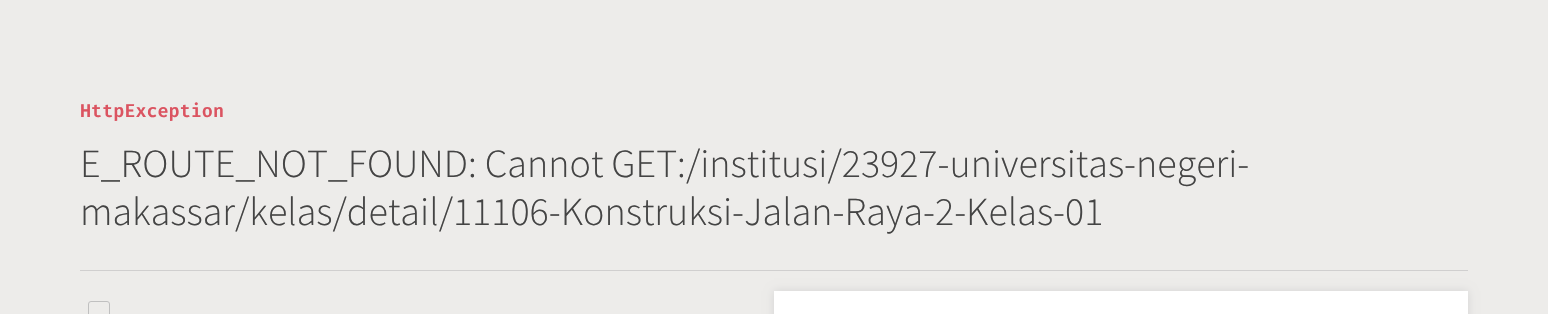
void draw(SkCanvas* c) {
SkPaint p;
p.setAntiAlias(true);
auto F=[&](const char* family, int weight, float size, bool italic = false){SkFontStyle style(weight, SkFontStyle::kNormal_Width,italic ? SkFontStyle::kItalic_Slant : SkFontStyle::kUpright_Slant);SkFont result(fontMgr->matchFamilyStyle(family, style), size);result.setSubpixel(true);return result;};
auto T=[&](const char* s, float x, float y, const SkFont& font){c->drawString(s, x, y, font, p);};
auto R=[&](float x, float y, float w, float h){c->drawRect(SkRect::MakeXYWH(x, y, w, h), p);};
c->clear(0xffedecea);
p.setColor(0xffd0cfcf);
R(80,270,1388,1);
auto f1 = F("Fira Code",600,18);
p.setColor(0xffdb5461);
T("HttpException",80,117,f1);
auto f2 = F("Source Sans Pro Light",300,40);
p.setColor(0xff444444);
T("E_ROUTE_NOT_FOUND: Cannot GET:/institusi/23927-universitas-negeri-",80,177,f2);
T("makassar/kelas/detail/11106-Konstruksi-Jalan-Raya-2-Kelas-01",80,225,f2);
p.setStroke(true);
p.setStrokeWidth(1);
p.setColor(0xffc0c0c0);
c->drawRoundRect(SkRect::MakeXYWH(88.5,301.5,21,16),2.5,2.5,p);
p.setStroke(false);
p.setColor(0xffd3d3d3);
p.setMaskFilter(SkMaskFilter::MakeBlur(kNormal_SkBlurStyle, 4.5));
c->drawRect(SkRect::MakeXYWH(774,291,694,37),p);
p.setMaskFilter(nullptr);
p.setColor(0xffffffff);
R(774,291,694,23);
}
